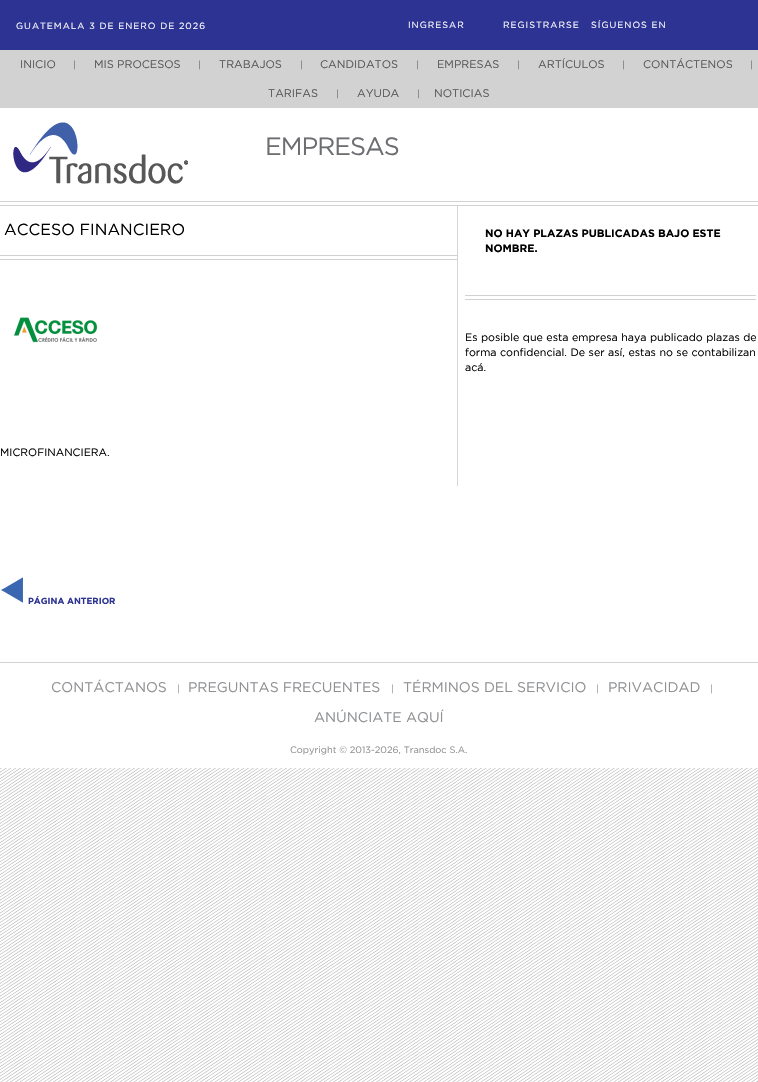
void draw(SkCanvas* c) {
SkPaint p;
p.setAntiAlias(true);
auto F=[&](const char* family, int weight, float size, bool italic = false){SkFontStyle style(weight, SkFontStyle::kNormal_Width,italic ? SkFontStyle::kItalic_Slant : SkFontStyle::kUpright_Slant);SkFont result(fontMgr->matchFamilyStyle(family, style), size);result.setSubpixel(true);return result;};
auto T=[&](const char* s, float x, float y, const SkFont& font){c->drawString(s, x, y, font, p);};
auto L=[&](const char* s, float x, float y, const SkFont& font, const SkPaint& ink, float letter, float word){std::vector<SkGlyphID> glyphs(font.countText(s, strlen(s), SkTextEncoding::kUTF8));std::vector<float> xs(glyphs.size());font.textToGlyphs(s, strlen(s), SkTextEncoding::kUTF8, glyphs);font.getXPos(glyphs, xs, x);float extra = 0;for (size_t i = 0; i < glyphs.size(); i++) {xs[i] += extra;extra += letter + word * (glyphs[i] == font.unicharToGlyph(' '));}c->drawTextBlob(SkTextBlob::MakeFromPosHGlyphs(glyphs, xs, y, font), 0, 0, ink);};
auto R=[&](float x, float y, float w, float h){c->drawRect(SkRect::MakeXYWH(x, y, w, h), p);};
auto I=[&](const char* path, float x, float y, float w, float h){auto image = SkImages::DeferredFromEncodedData(SkData::MakeFromFileName(path));c->drawImageRect(image, SkRect::MakeXYWH(x, y, w, h), SkSamplingOptions());};
c->clear(0xffffffff);
I("1.png",0,768,758,314);
p.setColor(0xff2c3393);
R(0,0,758,50);
auto f1 = F("Gotham",400,9);
p.setColor(0xffffffff);
L("GUATEMALA 3 DE ENERO DE 2026",16,29,f1,p,1,0);
L("INGRESAR",408,28,f1,p,1,0);
L("REGISTRARSE",503,28,f1,p,1,0);
L("SÍGUENOS EN",591,28,f1,p,1,0);
p.setColor(0xffd2d2d2);
R(0,50,758,58);
auto f2 = F("Gotham",400,11);
p.setColor(0xff59595b);
T("INICIO",20,68,f2);
auto f3 = F("Gotham",400,9.3);
p.setColor(0xff6d6e71);
T("|",73,68,f3);
p.setColor(0xff59595b);
T("MIS PROCESOS",94,68,f2);
p.setColor(0xff6d6e71);
T("|",198,68,f3);
p.setColor(0xff59595b);
T("TRABAJOS",219,68,f2);
p.setColor(0xff6d6e71);
T("|",300,68,f3);
p.setColor(0xff59595b);
T("CANDIDATOS",320,68,f2);
p.setColor(0xff6d6e71);
T("|",416,68,f3);
p.setColor(0xff59595b);
T("EMPRESAS",437,68,f2);
p.setColor(0xff6d6e71);
T("|",517,68,f3);
p.setColor(0xff59595b);
T("ARTÍCULOS",538,68,f2);
p.setColor(0xff6d6e71);
T("|",622,68,f3);
p.setColor(0xff59595b);
T("CONTÁCTENOS",643,68,f2);
p.setColor(0xff6d6e71);
T("|",750,68,f3);
p.setColor(0xff59595b);
T("TARIFAS",268,97,f2);
p.setColor(0xff6d6e71);
T("|",336,97,f3);
p.setColor(0xff59595b);
T("AYUDA",357,97,f2);
p.setColor(0xff6d6e71);
T("|",417,97,f3);
p.setColor(0xff59595b);
T("NOTICIAS",434,97,f2);
I("2.png",13,122,175,62);
auto f4 = F("Gotham",400,25);
p.setColor(0xff6d6e71);
L("EMPRESAS",265,155,f4,p,-1,0);
p.setColor(0xffd1d2d4);
R(0,201,758,1);
R(0,205,758,1);
auto f5 = F("Gotham",400,16);
p.setColor(0xff000000);
T("ACCESO FINANCIERO",4,235,f5);
p.setColor(0xffd1d2d4);
R(0,255,457,1);
R(0,259,457,1);
I("3.png",14,317,84,26);
auto f6 = F("Gotham",400,10.7);
p.setColor(0xff000000);
T("MICROFINANCIERA.",0,456,f6);
I("4.png",1,577,22,26);
auto f7 = F("Gotham",700,8.75);
p.setColor(0xff2c3393);
T("PÁGINA ANTERIOR",28,604,f7);
p.setColor(0xffd5d5d6);
R(457,206,1,280);
auto f8 = F("Gotham",700,10.7);
p.setColor(0xff000000);
T("NO HAY PLAZAS PUBLICADAS BAJO ESTE",485,237,f8);
T("NOMBRE.",485,252,f8);
p.setColor(0xffd1d2d4);
R(465,295,291,1);
R(465,299,291,1);
p.setColor(0xff000000);
L("Es posible que esta empresa haya publicado plazas de",465,341,f6,p,0,.25);
L("forma confidencial. De ser así, estas no se contabilizan",465,356,f6,p,0,.25);
T("acá.",465,371,f6);
p.setColor(0xffd1d2d4);
R(0,662,758,1);
auto f9 = F("Gotham",400,14);
p.setColor(0xff8e9093);
T("CONTÁCTANOS",51,692,f9);
T("|",177,692,f3);
T("PREGUNTAS FRECUENTES",188,692,f9);
T("|",391,692,f3);
T("TÉRMINOS DEL SERVICIO",403,692,f9);
T("|",596,692,f3);
T("PRIVACIDAD",608,692,f9);
T("|",710,692,f3);
T("ANÚNCIATE AQUÍ",314,722,f9);
T("Copyright © 2013-2026, Transdoc S.A.",290,753,f3);
}
